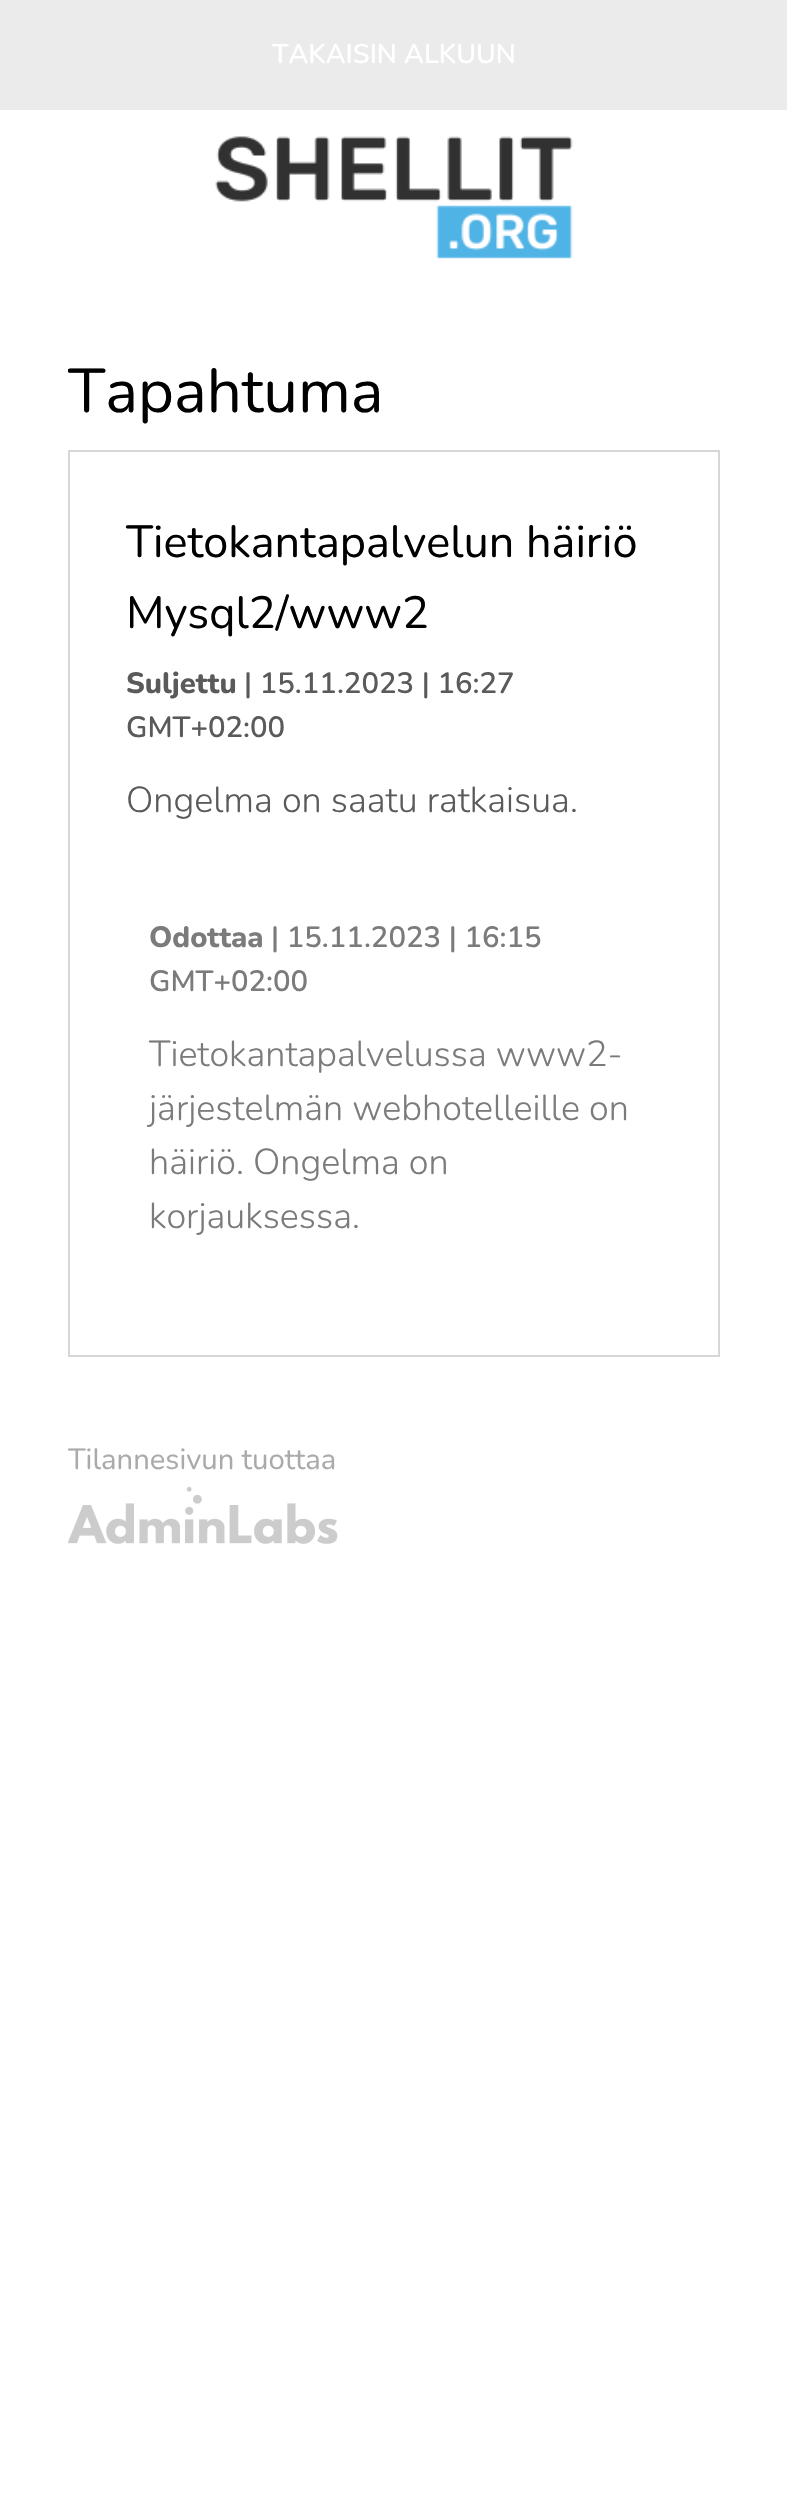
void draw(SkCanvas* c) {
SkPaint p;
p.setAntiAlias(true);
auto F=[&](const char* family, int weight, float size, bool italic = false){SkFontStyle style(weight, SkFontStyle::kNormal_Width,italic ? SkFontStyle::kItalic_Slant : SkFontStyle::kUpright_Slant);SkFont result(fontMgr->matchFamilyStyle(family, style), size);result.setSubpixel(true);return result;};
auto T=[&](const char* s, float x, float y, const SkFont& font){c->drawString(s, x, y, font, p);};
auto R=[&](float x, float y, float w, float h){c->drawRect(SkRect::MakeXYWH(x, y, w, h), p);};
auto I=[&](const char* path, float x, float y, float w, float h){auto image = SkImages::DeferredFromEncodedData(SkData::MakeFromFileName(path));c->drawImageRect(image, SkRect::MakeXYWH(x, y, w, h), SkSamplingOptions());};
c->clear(0xffffffff);
p.setColor(0xffebebeb);
R(0,0,787,110);
auto f1 = F("Nunito",600,27);
p.setColor(0xffffffff);
T("TAKAISIN ALKUUN",272,63,f1);
I("1.png",215,136,358,123);
c->save();
c->clipRect(SkRect::MakeXYWH(68,351,652,1006));
auto f2 = F("Nunito",400,61.75);
p.setColor(0xff000000);
T("Tapahtuma",68,412,f2);
c->restore();
p.setStroke(true);
p.setStrokeWidth(2);
p.setColor(0xffd7d7d7);
c->drawRect(SkRect::MakeXYWH(69,451,650,905),p);
auto f3 = F("Nunito",400,45);
p.setStroke(false);
p.setColor(0xff000000);
T("Tietokantapalvelun häiriö",126,557,f3);
T("Mysql2/www2",126,628,f3);
auto f4 = F("Nunito",800,29.25);
p.setColor(0xff5a5a5a);
T("Suljettu",126,693,f4);
auto f5 = F("Nunito",600,29.25);
T("| 15.11.2023 | 16:27",244,693,f5);
T("GMT+02:00",126,737,f5);
auto f6 = F("Nunito",300,36);
T("Ongelma on saatu ratkaisua.",126,812,f6);
p.setColor(0xff7b7b7b);
T("Odottaa",149,947,f4);
T("| 15.11.2023 | 16:15",271,947,f5);
T("GMT+02:00",149,991,f5);
T("Tietokantapalvelussa www2-",149,1066,f6);
T("järjestelmän webhotelleille on",149,1120,f6);
T("häiriö. Ongelma on",149,1174,f6);
T("korjauksessa.",149,1228,f6);
c->save();
c->clipRect(SkRect::MakeXYWH(68,1447,652,108));
auto f7 = F("Nunito",400,29.25);
p.setColor(0xffaaaaaa);
T("Tilannesivun tuottaa",68,1469,f7);
c->restore();
I("2.png",68,1486,270,58);
}
